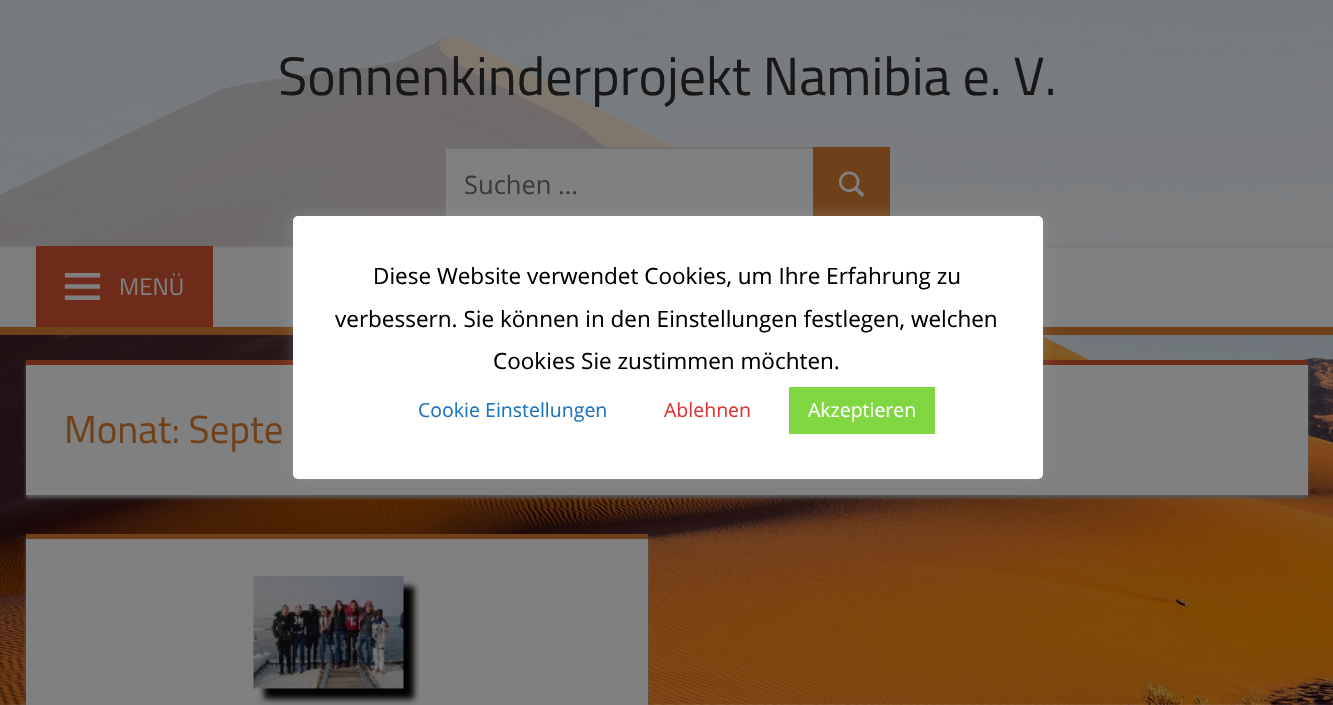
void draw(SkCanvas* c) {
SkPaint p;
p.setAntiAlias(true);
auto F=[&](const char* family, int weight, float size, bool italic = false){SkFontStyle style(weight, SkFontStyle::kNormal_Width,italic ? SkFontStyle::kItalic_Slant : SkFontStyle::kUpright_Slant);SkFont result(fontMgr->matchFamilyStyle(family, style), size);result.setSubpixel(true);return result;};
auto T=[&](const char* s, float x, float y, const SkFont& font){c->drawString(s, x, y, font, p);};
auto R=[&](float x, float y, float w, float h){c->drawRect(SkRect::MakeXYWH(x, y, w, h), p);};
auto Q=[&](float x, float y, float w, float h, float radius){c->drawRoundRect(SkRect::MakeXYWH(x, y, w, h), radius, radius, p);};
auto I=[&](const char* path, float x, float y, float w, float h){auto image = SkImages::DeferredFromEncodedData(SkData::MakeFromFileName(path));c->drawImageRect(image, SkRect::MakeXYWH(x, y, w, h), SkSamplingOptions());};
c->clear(0xffffffff);
I("1.png",0,0,1333,705);
p.setColor(0xcc808080);
R(0,0,1333,327);
auto f1 = F("Titillium Web",400,54);
p.setColor(0xff181818);
T("Sonnenkinderprojekt Namibia e. V.",278,95,f1);
p.setColor(0xff808080);
R(446,149,367,67);
p.setStroke(true);
p.setStrokeWidth(2);
p.setColor(0xff6f6f6f);
c->drawRect(SkRect::MakeXYWH(445,148,369,72),p);
auto f2 = F("Open Sans",400,25.5);
p.setStroke(false);
p.setColor(0xff3b3b3b);
T("Suchen …",464,194,f2);
p.setColor(0xff6f411a);
R(813,147,77,69);
I("2.png",838,171,27,26);
p.setColor(0xe0808080);
R(0,246,1333,81);
p.setColor(0x0d000000);
R(0,246,1333,2);
p.setColor(0xff6f411a);
R(0,327,1333,8);
p.setColor(0xff6f2b1a);
R(36,246,177,81);
I("3.png",64,273,37,27);
auto f3 = F("Titillium Web",400,24);
p.setColor(0xff808080);
T("MENÜ",119,295,f3);
p.setColor(0xff555555);
p.setMaskFilter(SkMaskFilter::MakeBlur(kNormal_SkBlurStyle, 1.5));
c->drawRect(SkRect::MakeXYWH(26,363,1282,135),p);
p.setMaskFilter(nullptr);
p.setColor(0xff808080);
R(26,365,1282,130);
p.setColor(0xff6f2b1a);
R(26,360,1282,5);
auto f4 = F("Titillium Web",400,39);
p.setColor(0xff6f411a);
T("Monat: Septe",64,443,f4);
p.setColor(0xff555555);
p.setMaskFilter(SkMaskFilter::MakeBlur(kNormal_SkBlurStyle, 1.5));
c->drawRect(SkRect::MakeXYWH(26,537,622,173),p);
p.setMaskFilter(nullptr);
p.setColor(0xff808080);
R(26,539,622,166);
p.setColor(0xff6f411a);
R(26,534,622,5);
I("4.png",253,576,167,129);
p.setColor(0x4dacabab);
p.setMaskFilter(SkMaskFilter::MakeBlur(kNormal_SkBlurStyle, 7.5));
c->drawRoundRect(SkRect::MakeXYWH(293,215,750,262),5,5,p);
p.setMaskFilter(nullptr);
p.setColor(0xffffffff);
Q(293,216,750,263,5);
auto f5 = F("Open Sans",400,22.5);
p.setColor(0xff000000);
T("Diese Website verwendet Cookies, um Ihre Erfahrung zu",373,284,f5);
T("verbessern. Sie können in den Einstellungen festlegen, welchen",335,327,f5);
T("Cookies Sie zustimmen möchten.",493,369,f5);
auto f6 = F("Open Sans",400,19.5);
p.setColor(0xff1e73be);
T("Cookie Einstellungen",418,417,f6);
p.setColor(0xffdd3333);
T("Ablehnen",664,417,f6);
p.setColor(0xff81d742);
R(789,387,146,47);
p.setColor(0xffffffff);
T("Akzeptieren",808,417,f6);
}
